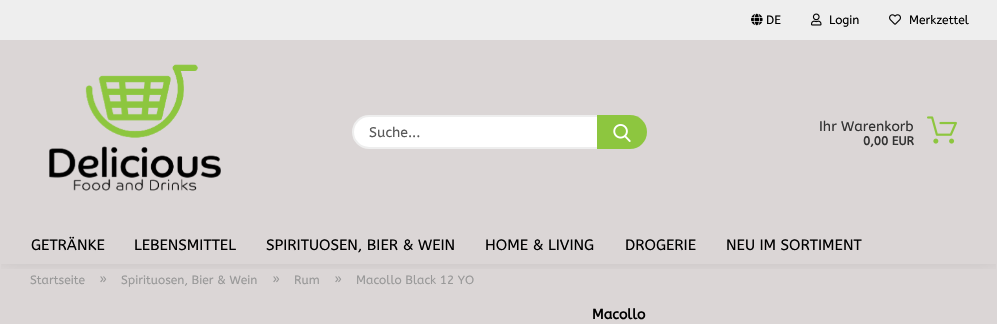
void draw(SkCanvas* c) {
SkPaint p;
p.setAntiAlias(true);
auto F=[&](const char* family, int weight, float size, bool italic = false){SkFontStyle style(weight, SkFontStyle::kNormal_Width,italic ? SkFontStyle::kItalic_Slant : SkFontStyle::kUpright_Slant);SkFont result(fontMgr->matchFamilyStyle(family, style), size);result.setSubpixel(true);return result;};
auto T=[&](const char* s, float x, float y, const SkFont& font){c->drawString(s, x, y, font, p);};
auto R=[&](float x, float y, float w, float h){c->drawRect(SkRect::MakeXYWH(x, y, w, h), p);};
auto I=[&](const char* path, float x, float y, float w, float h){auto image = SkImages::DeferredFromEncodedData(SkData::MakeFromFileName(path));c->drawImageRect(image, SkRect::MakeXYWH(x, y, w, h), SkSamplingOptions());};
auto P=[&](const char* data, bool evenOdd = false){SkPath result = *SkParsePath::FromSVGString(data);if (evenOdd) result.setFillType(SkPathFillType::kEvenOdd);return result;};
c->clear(0xffdbd6d6);
c->save();
c->clipRect(SkRect::MakeXYWH(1,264,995,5));
p.setColor(0x4d000000);
p.setMaskFilter(SkMaskFilter::MakeBlur(kNormal_SkBlurStyle, 12.5));
c->drawRect(SkRect::MakeXYWH(0,0,997,250),p);
p.setMaskFilter(nullptr);
c->restore();
p.setColor(0xffeeeeee);
R(0,0,997,40);
I("1.png",751,13,12,13);
auto f1 = F("ABeeZee",400,12);
p.setColor(0xff000000);
T("DE",766,24,f1);
I("2.png",811,13,11,13);
T("Login",829,24,f1);
I("3.png",889,14,12,11);
T("Merkzettel",909,24,f1);
I("4.png",49,64,172,127);
p.setColor(0xffffffff);
c->drawRoundRect(SkRect::MakeXYWH(353,116,291,32),16,16,p);
p.setStroke(true);
p.setStrokeWidth(2);
p.setColor(0xffeeeeee);
c->drawRoundRect(SkRect::MakeXYWH(353,116,291,32),16,16,p);
auto f2 = F("ABeeZee",400,14);
p.setStroke(false);
p.setColor(0xff595959);
T("Suche...",369,137,f2);
p.setColor(0xff8dc63f);
c->drawPath(P("M597 115h33c9.5 0 17 7.5 17 17c0 9.5-7.5 17-17 17h-33z"),p);
I("5.png",613,124,18,18);
p.setColor(0xff333333);
T("Ihr Warenkorb",819,131,f2);
auto f3 = F("ABeeZee",700,12);
T("0,00 EUR",863,145,f3);
I("6.png",927,116,30,28);
p.setColor(0xffdbd6d6);
R(0,250,997,14);
auto f4 = F("ABeeZee",400,15);
p.setColor(0xff000000);
T("GETRÄNKE",31,250,f4);
T("LEBENSMITTEL",134,250,f4);
T("SPIRITUOSEN, BIER & WEIN",266,250,f4);
T("HOME & LIVING",485,250,f4);
T("DROGERIE",625,250,f4);
T("NEU IM SORTIMENT",726,250,f4);
p.setColor(0xff999999);
T("Startseite",30,284,f1);
T("»",99,284,f2);
T("Spirituosen, Bier & Wein",121,284,f1);
T("»",272,284,f2);
T("Rum",294,284,f1);
T("»",334,284,f2);
T("Macollo Black 12 YO",356,284,f1);
auto f5 = F("ABeeZee",700,14);
p.setColor(0xff000000);
T("Macollo",592,319,f5);
}
